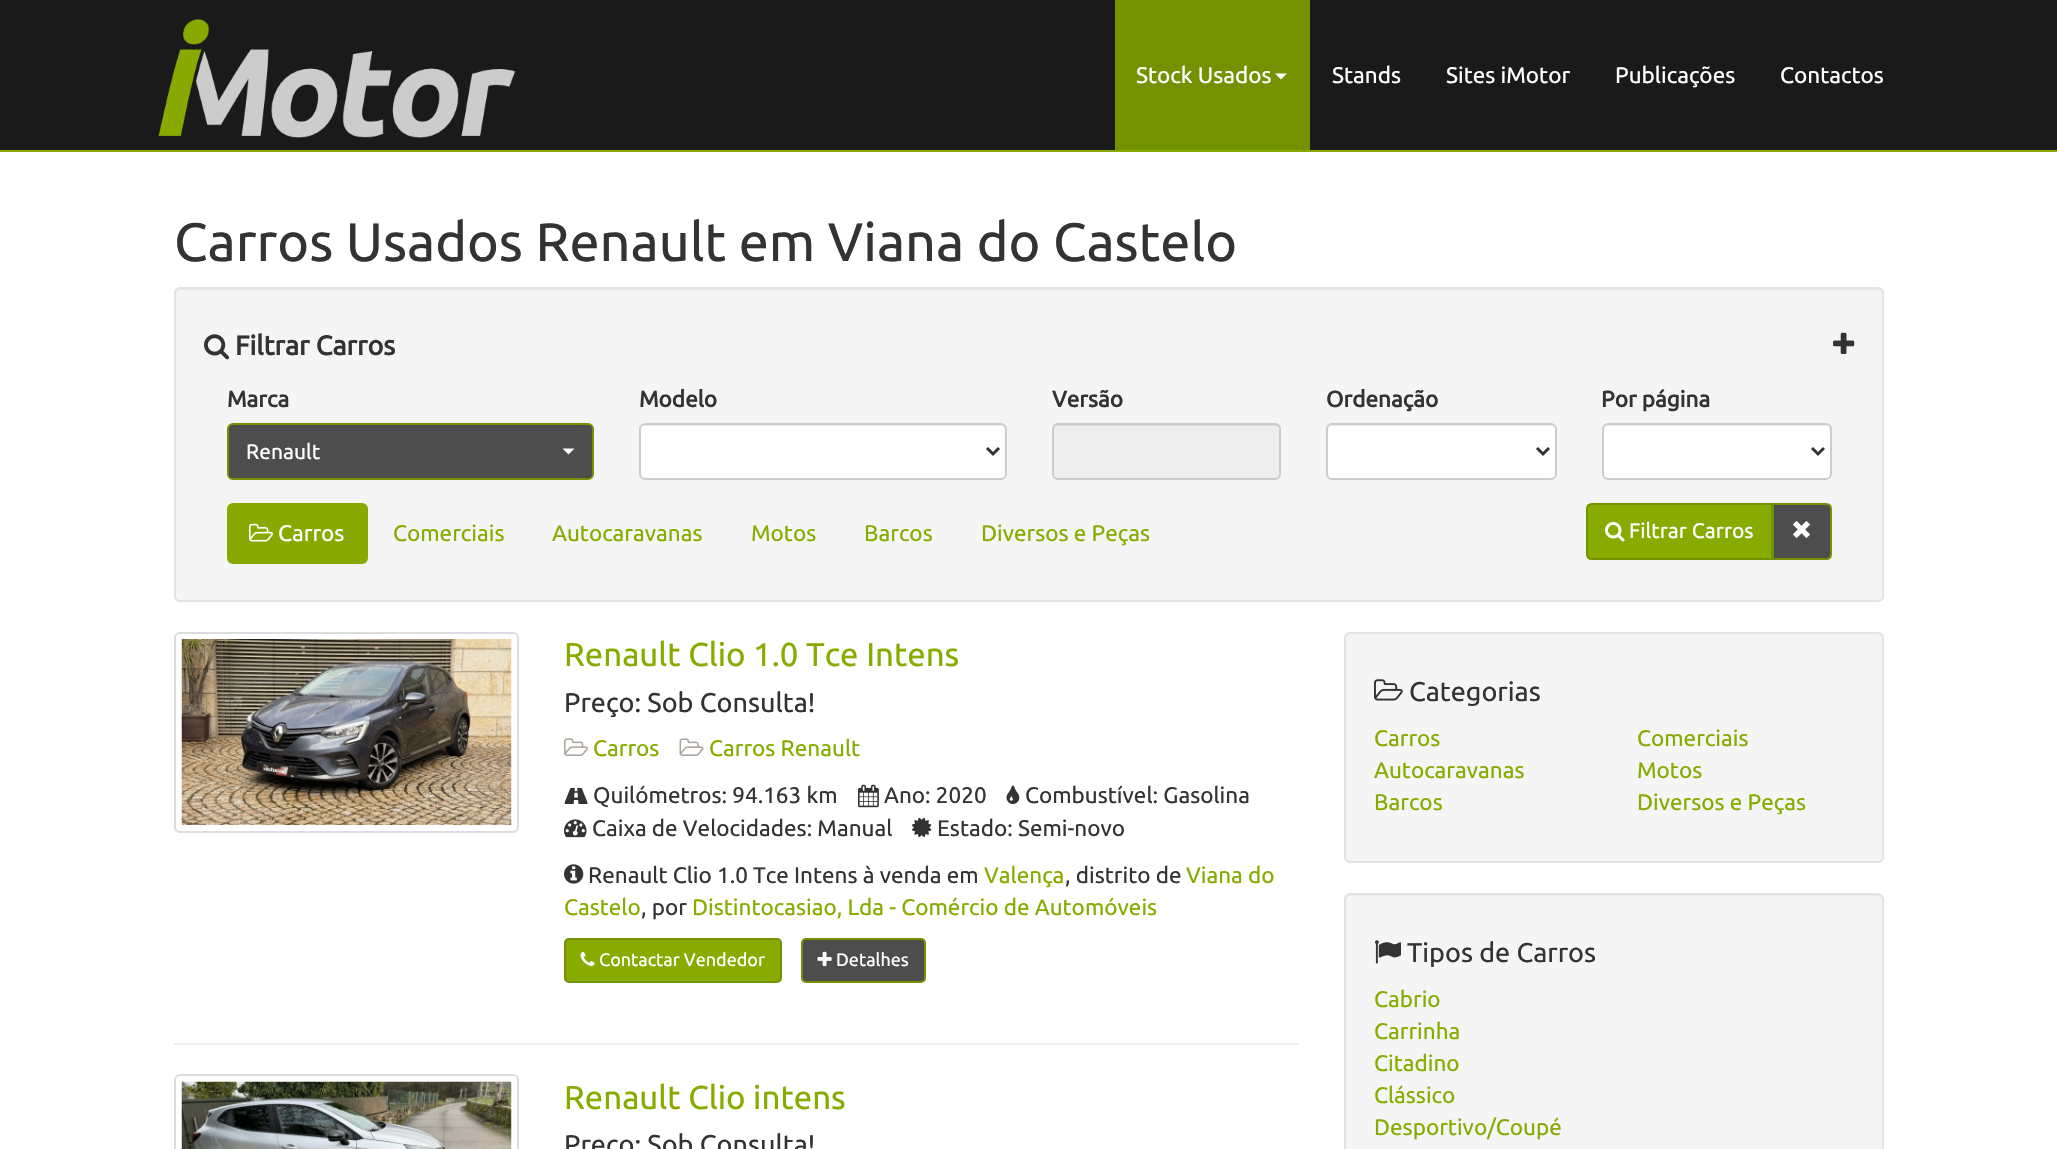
void draw(SkCanvas* c) {
SkPaint p;
p.setAntiAlias(true);
auto F=[&](const char* family, int weight, float size, bool italic = false){SkFontStyle style(weight, SkFontStyle::kNormal_Width,italic ? SkFontStyle::kItalic_Slant : SkFontStyle::kUpright_Slant);SkFont result(fontMgr->matchFamilyStyle(family, style), size);result.setSubpixel(true);return result;};
auto T=[&](const char* s, float x, float y, const SkFont& font){c->drawString(s, x, y, font, p);};
auto R=[&](float x, float y, float w, float h){c->drawRect(SkRect::MakeXYWH(x, y, w, h), p);};
auto Q=[&](float x, float y, float w, float h, float radius){c->drawRoundRect(SkRect::MakeXYWH(x, y, w, h), radius, radius, p);};
auto I=[&](const char* path, float x, float y, float w, float h){auto image = SkImages::DeferredFromEncodedData(SkData::MakeFromFileName(path));c->drawImageRect(image, SkRect::MakeXYWH(x, y, w, h), SkSamplingOptions());};
auto P=[&](const char* data, bool evenOdd = false){SkPath result = *SkParsePath::FromSVGString(data);if (evenOdd) result.setFillType(SkPathFillType::kEvenOdd);return result;};
c->clear(0xffffffff);
p.setColor(0xff1a1a1a);
R(0,0,2057,150);
p.setColor(0xff88aa00);
R(0,150,2057,2);
I("1.png",158,19,358,119);
p.setColor(0xff749100);
R(1115,0,195,150);
auto f1 = F("Ubuntu",400,22.5);
p.setColor(0xffffffff);
T("Stock Usados",1136,83,f1);
c->drawPath(P("M1275 73.5h12l-6 6z"),p);
T("Stands",1332,83,f1);
T("Sites iMotor",1446,83,f1);
T("Publicações",1615,83,f1);
T("Contactos",1780,83,f1);
auto f2 = F("Ubuntu",400,54);
p.setColor(0xff333333);
T("Carros Usados Renault em Viana do Castelo",174,261,f2);
p.setColor(0xfff5f5f5);
Q(174,287,1710,315,6);
p.setColor(0xffe9e9e9);
c->drawPath(P("M180 290h1698c2 0 4 2 4 4v304c1-1 1-2 1-3v-302c0-3-2-5-5-5h-1697c-3 0-5 2-5 5v1c0-2 2-4 4-4z"),p);
p.setStroke(true);
p.setStrokeWidth(2);
p.setColor(0xffe3e3e3);
c->drawRoundRect(SkRect::MakeXYWH(175,288,1708,313),5,5,p);
I("2.png",204,334,26,26);
auto f3 = F("Ubuntu",700,27);
p.setStroke(false);
p.setColor(0xff333333);
T("Filtrar Carros",235,355,f3);
I("3.png",1833,332,22,22);
auto f4 = F("Ubuntu",700,22.5);
T("Marca",227,407,f4);
p.setColor(0xff4d4d4d);
c->drawRoundRect(SkRect::MakeXYWH(228,424,365,55),5,5,p);
p.setStroke(true);
p.setColor(0xff749100);
c->drawRoundRect(SkRect::MakeXYWH(228,424,365,55),5,5,p);
auto f5 = F("Ubuntu",400,21);
p.setStroke(false);
p.setColor(0xffffffff);
T("Renault",246,459,f5);
c->drawPath(P("M562.5 448.5h12l-6 6z"),p);
p.setColor(0xff333333);
T("Modelo",639,407,f4);
p.setColor(0xffffffff);
Q(639,423,368,57,6);
p.setColor(0xffececec);
c->drawPath(P("M645 426h355c3 0 5 2 5 4c0-3-2-5-5-5h-354c-2 0-3 1-4 2z"),p);
p.setStroke(true);
p.setColor(0xffcccccc);
c->drawRoundRect(SkRect::MakeXYWH(640,424,366,55),5,5,p);
p.setStrokeWidth(3);
p.setColor(0xff333333);
c->drawPath(P("M987 448l6 6l6-6"),p);
p.setStroke(false);
T("Versão",1052,407,f4);
p.setColor(0xffeeeeee);
Q(1052,423,229,57,6);
p.setColor(0xffdcdcdc);
c->drawPath(P("M1058 426h217c2 0 5 2 5 4c0-3-2-5-5-5h-217c-3 0-5 2-5 5c0-2 2-4 5-4z"),p);
p.setStroke(true);
p.setStrokeWidth(2);
p.setColor(0xffcccccc);
c->drawRoundRect(SkRect::MakeXYWH(1053,424,227,55),5,5,p);
p.setStroke(false);
p.setColor(0xff333333);
T("Ordenação",1326,407,f4);
p.setColor(0xffffffff);
Q(1326,423,231,57,6);
p.setColor(0xffececec);
c->drawPath(P("M1332 426h219c2 0 5 2 5 4c0-3-2-5-5-5h-218c-3 0-5 2-5 5c0-2 2-4 4-4z"),p);
p.setStroke(true);
p.setColor(0xffcccccc);
c->drawRoundRect(SkRect::MakeXYWH(1327,424,229,55),5,5,p);
p.setStrokeWidth(3);
p.setColor(0xff333333);
c->drawPath(P("M1537 448l6 6l6-6"),p);
p.setStroke(false);
T("Por página",1601,407,f4);
p.setColor(0xffffffff);
Q(1602,423,230,57,6);
p.setColor(0xffececec);
c->drawPath(P("M1608 426h218c2 0 4 2 4 4c0-3-2-5-5-5h-216c-3 0-5 2-5 5c0-2 2-4 4-4z"),p);
p.setStroke(true);
p.setStrokeWidth(2);
p.setColor(0xffcccccc);
c->drawRoundRect(SkRect::MakeXYWH(1603,424,228,55),5,5,p);
p.setStrokeWidth(3);
p.setColor(0xff333333);
c->drawPath(P("M1812 448l6 6l6-6"),p);
p.setStroke(false);
p.setColor(0xff88aa00);
Q(227,503,141,61,6);
I("4.png",249,523,24,19);
p.setColor(0xffffffff);
T("Carros",278,541,f1);
p.setColor(0xff88ab00);
T("Comerciais",393,541,f1);
T("Autocaravanas",552,541,f1);
T("Motos",751,541,f1);
T("Barcos",864,541,f1);
T("Diversos e Peças",981,541,f1);
c->drawPath(P("M1592 504h180v55h-180c-3 0-5-2-5-5v-45c0-3 2-5 5-5z"),p);
p.setStroke(true);
p.setStrokeWidth(2);
p.setColor(0xff749100);
c->drawPath(P("M1592 504h180v55h-180c-3 0-5-2-5-5v-45c0-3 2-5 5-5z"),p);
I("5.png",1605,522,20,20);
p.setStroke(false);
p.setColor(0xffffffff);
T("Filtrar Carros",1629,538,f5);
p.setColor(0xff4d4d4d);
c->drawPath(P("M1773 504h53c3 0 5 2 5 5v45c0 3-2 5-5 5h-53z"),p);
p.setStroke(true);
p.setColor(0xff749100);
c->drawPath(P("M1773 504h53c3 0 5 2 5 5v45c0 3-2 5-5 5h-53z"),p);
I("6.png",1792,521,19,17);
p.setColor(0xffdddddd);
c->drawRoundRect(SkRect::MakeXYWH(175,633,343,199),5,5,p);
I("7.png",181,639,331,186);
auto f6 = F("Ubuntu",400,33);
p.setStroke(false);
p.setColor(0xff88ab00);
T("Renault Clio 1.0 Tce Intens",564,666,f6);
auto f7 = F("Ubuntu",400,27);
p.setColor(0xff333333);
T("Preço: Sob Consulta!",564,712,f7);
I("8.png",564,738,24,18);
p.setColor(0xff88ab00);
T("Carros",593,756,f1);
I("9.png",679,738,25,18);
T("Carros Renault",709,756,f1);
I("10.png",564,787,24,17);
p.setColor(0xff333333);
T("Quilómetros: 94.163 km",593,803,f1);
I("11.png",858,784,21,24);
T("Ano: 2020",884,803,f1);
I("12.png",1006,785,14,19);
T("Combustível: Gasolina",1025,803,f1);
I("13.png",564,819,23,19);
T("Caixa de Velocidades: Manual",592,836,f1);
I("14.png",912,817,20,21);
T("Estado: Semi-novo",937,836,f1);
I("15.png",564,864,20,20);
T("Renault Clio 1.0 Tce Intens à venda em",588,883,f1);
p.setColor(0xff88ab00);
T("Valença",984,883,f1);
p.setColor(0xff333333);
T(", distrito de",1065,883,f1);
p.setColor(0xff88ab00);
T("Viana do",1186,883,f1);
T("Castelo",564,915,f1);
p.setColor(0xff333333);
T(", por",641,915,f1);
p.setColor(0xff88ab00);
T("Distintocasiao, Lda - Comércio de Automóveis",692,915,f1);
c->drawRoundRect(SkRect::MakeXYWH(565,939,216,43),4,4,p);
p.setStroke(true);
p.setColor(0xff749100);
c->drawRoundRect(SkRect::MakeXYWH(565,939,216,43),4,4,p);
I("16.png",580,951,15,15);
auto f8 = F("Ubuntu",400,18);
p.setStroke(false);
p.setColor(0xffffffff);
T("Contactar Vendedor",599,966,f8);
p.setColor(0xff4d4d4d);
c->drawRoundRect(SkRect::MakeXYWH(802,939,123,43),4,4,p);
p.setStroke(true);
p.setColor(0xff749100);
c->drawRoundRect(SkRect::MakeXYWH(802,939,123,43),4,4,p);
I("17.png",817,951,15,15);
p.setStroke(false);
p.setColor(0xffffffff);
T("Detalhes",836,966,f8);
p.setColor(0xffeeeeee);
R(174,1043,1125,2);
p.setStroke(true);
p.setColor(0xffdddddd);
c->drawRoundRect(SkRect::MakeXYWH(175,1075,343,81),5,5,p);
I("18.png",181,1081,331,68);
p.setStroke(false);
p.setColor(0xff88ab00);
T("Renault Clio intens",564,1109,f6);
p.setColor(0xff333333);
T("Preço: Sob Consulta!",564,1154,f7);
p.setColor(0xfff5f5f5);
Q(1344,632,540,231,6);
p.setColor(0xffe9e9e9);
c->drawPath(P("M1350 634h528c2 0 4 3 4 5v220c1-1 1-2 1-3v-218c0-3-2-5-5-5h-527c-3 0-5 2-5 5v1c0-2 2-5 4-5z"),p);
p.setStroke(true);
p.setColor(0xffe3e3e3);
c->drawRoundRect(SkRect::MakeXYWH(1345,633,538,229),5,5,p);
I("19.png",1374,679,29,22);
p.setStroke(false);
p.setColor(0xff333333);
T("Categorias",1409,701,f7);
p.setColor(0xff88ab00);
T("Carros",1374,746,f1);
T("Autocaravanas",1374,778,f1);
T("Barcos",1374,810,f1);
T("Comerciais",1637,746,f1);
T("Motos",1637,778,f1);
T("Diversos e Peças",1637,810,f1);
p.setColor(0xfff5f5f5);
Q(1344,893,540,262,6);
p.setColor(0xffe9e9e9);
c->drawPath(P("M1350 896h528c2 0 4 2 4 4v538l-1 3c1-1 2-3 2-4v-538c0-3-2-5-5-5h-527c-3 0-5 2-5 5v1c0-2 2-4 4-4z"),p);
p.setStroke(true);
p.setColor(0xffe3e3e3);
c->drawRoundRect(SkRect::MakeXYWH(1345,894,538,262),5,5,p);
I("20.png",1375,940,26,24);
p.setStroke(false);
p.setColor(0xff333333);
T("Tipos de Carros",1407,962,f7);
p.setColor(0xff88ab00);
T("Cabrio",1374,1007,f1);
T("Carrinha",1374,1039,f1);
T("Citadino",1374,1071,f1);
T("Clássico",1374,1103,f1);
T("Desportivo/Coupé",1374,1135,f1);
}
